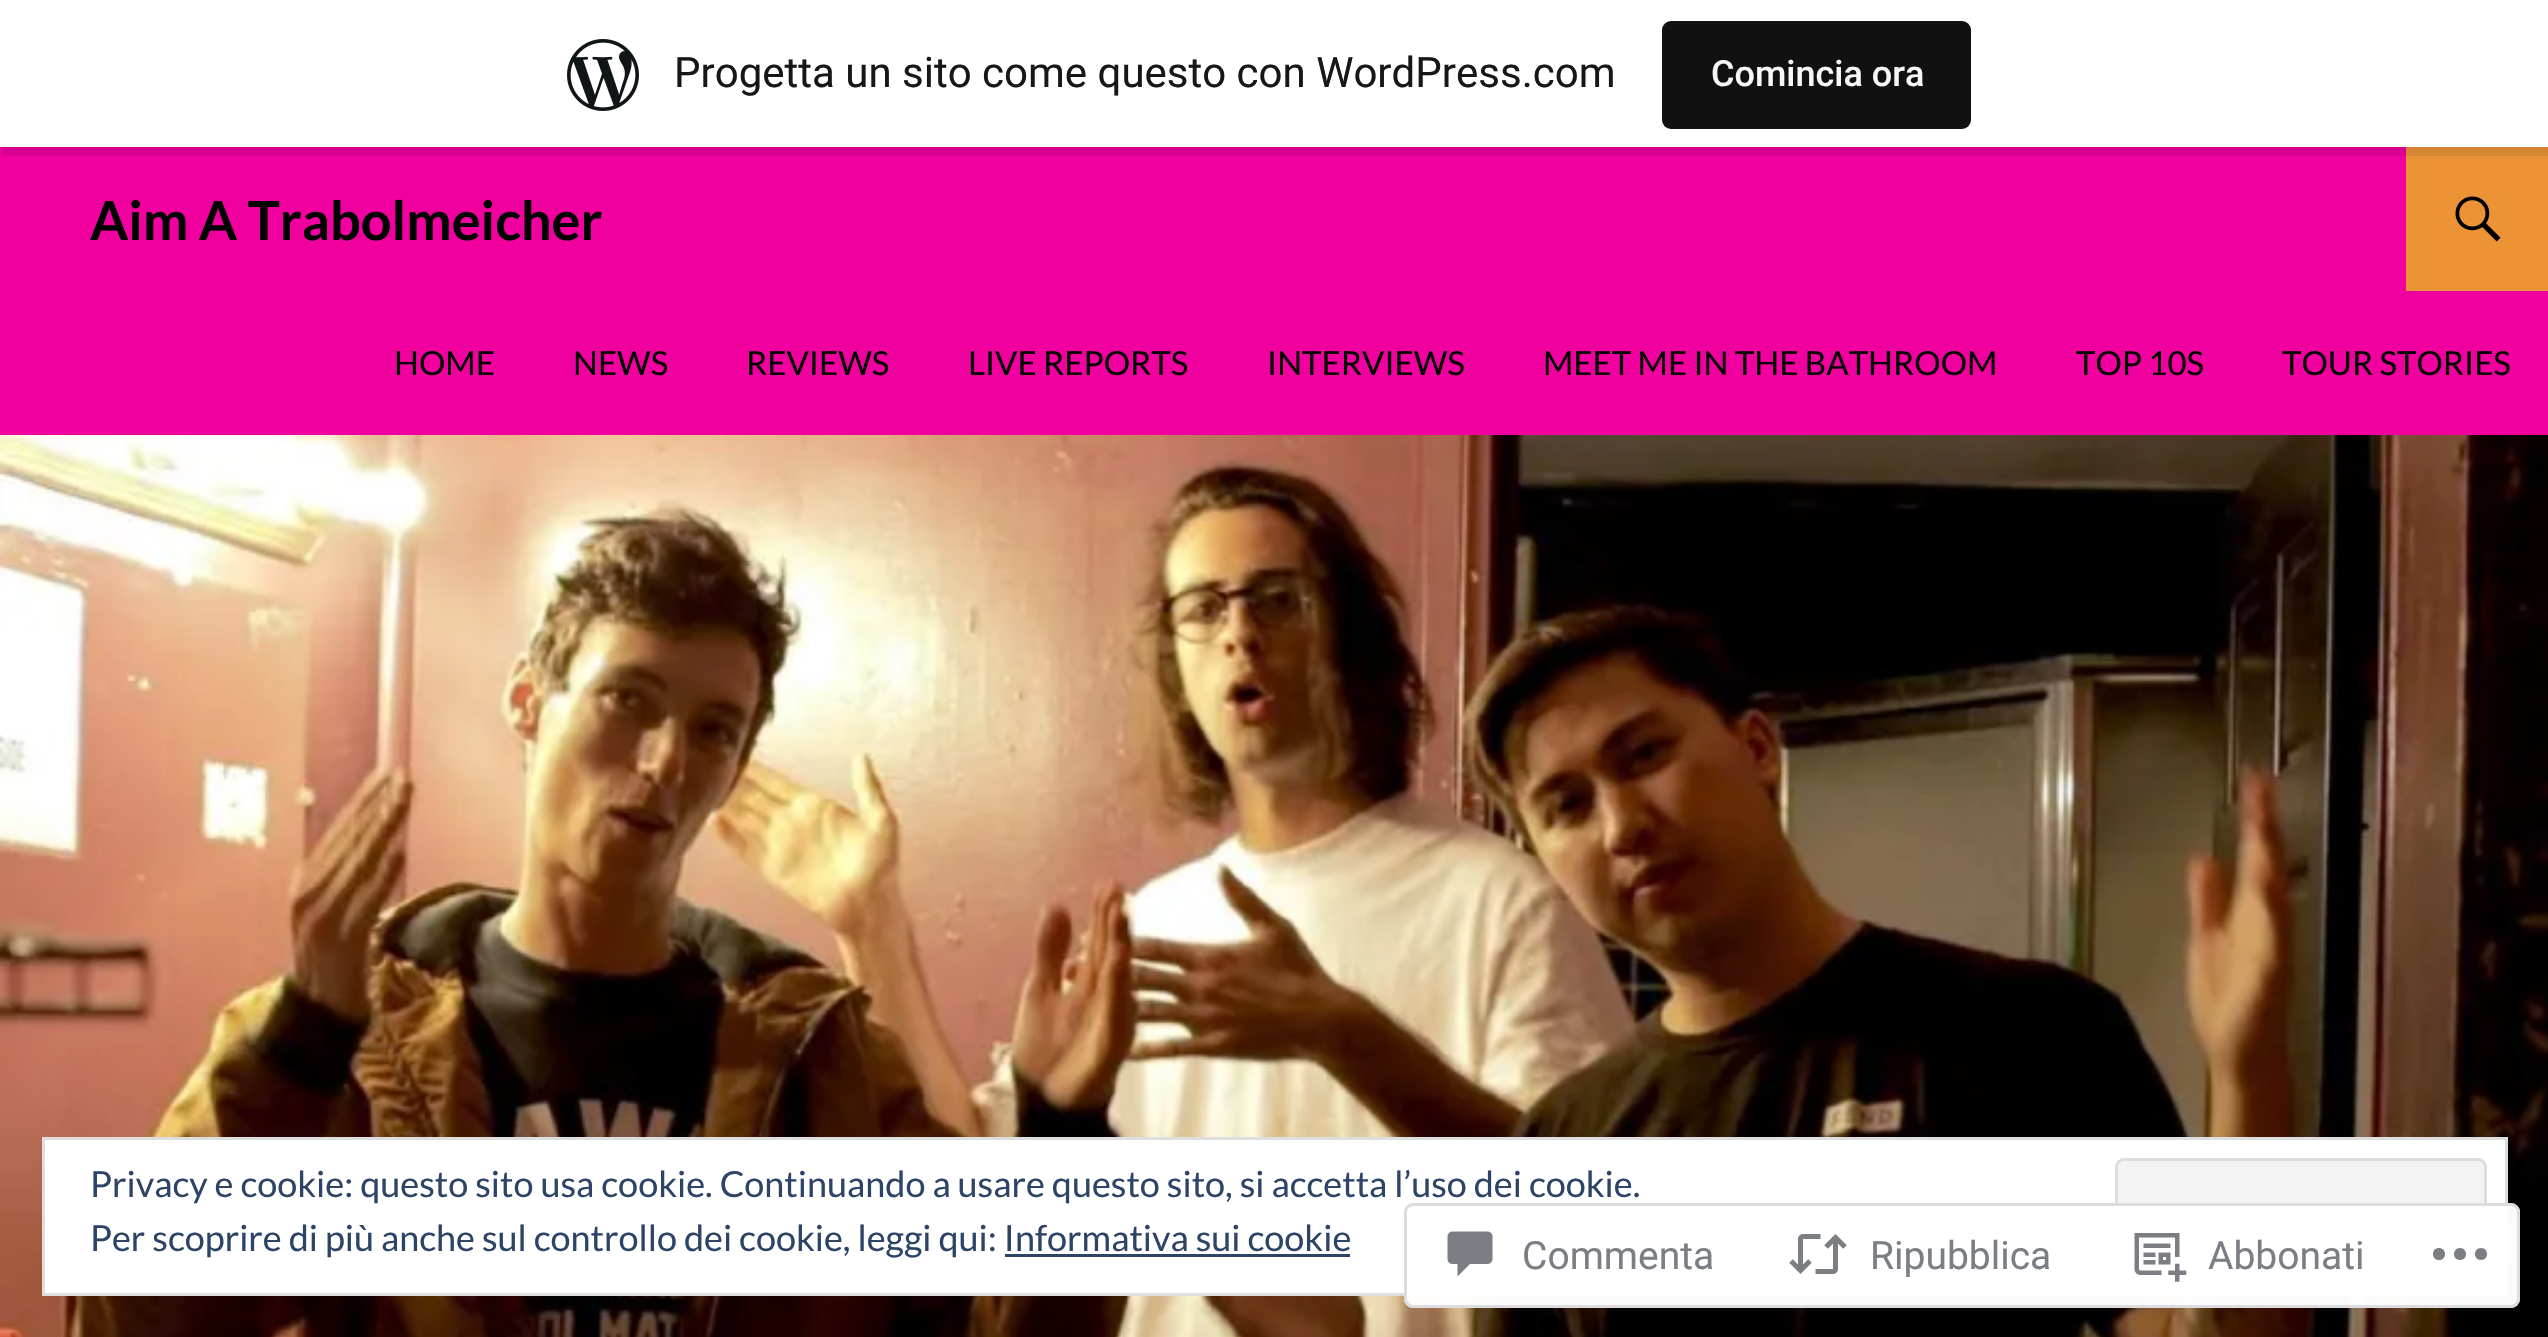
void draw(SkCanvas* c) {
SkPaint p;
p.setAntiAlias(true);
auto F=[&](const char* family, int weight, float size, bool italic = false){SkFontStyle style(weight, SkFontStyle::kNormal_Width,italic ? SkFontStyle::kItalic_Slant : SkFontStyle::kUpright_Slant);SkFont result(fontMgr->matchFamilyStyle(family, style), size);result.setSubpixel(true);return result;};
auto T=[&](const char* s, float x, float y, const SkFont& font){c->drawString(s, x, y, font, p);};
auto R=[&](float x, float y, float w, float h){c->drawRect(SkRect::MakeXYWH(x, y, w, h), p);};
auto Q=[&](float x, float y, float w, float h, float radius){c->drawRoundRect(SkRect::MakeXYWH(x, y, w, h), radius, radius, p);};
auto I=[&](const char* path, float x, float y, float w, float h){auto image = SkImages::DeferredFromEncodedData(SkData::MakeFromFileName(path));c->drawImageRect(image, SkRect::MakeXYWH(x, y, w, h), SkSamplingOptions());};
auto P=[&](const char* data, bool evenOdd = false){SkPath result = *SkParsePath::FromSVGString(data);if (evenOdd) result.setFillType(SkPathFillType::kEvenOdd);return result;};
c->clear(0xffffffff);
p.setColor(0xffef009f);
R(0,147,2548,288);
p.setColor(0xffec9336);
R(2406,147,142,144);
p.setColor(0x0d000000);
p.setMaskFilter(SkMaskFilter::MakeBlur(kNormal_SkBlurStyle, 3));
c->drawRect(SkRect::MakeXYWH(0,3,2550,147),p);
p.setMaskFilter(nullptr);
p.setColor(0x14000000);
c->drawPath(P("M3 147v9h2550v-147h-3v138z"),p);
p.setColor(0xffffffff);
R(0,0,2548,147);
I("1.png",567,39,72,72);
auto f1 = F("Roboto",400,42);
p.setColor(0xff171717);
T("Progetta un sito come questo con WordPress.com",674,87,f1);
p.setColor(0xff111111);
Q(1662,21,309,108,9);
auto f2 = F("Roboto",500,36);
p.setColor(0xfff6f7f7);
T("Comincia ora",1711,86,f2);
auto f3 = F("Lato",700,54);
p.setColor(0xff000000);
T("Aim A Trabolmeicher",90,240,f3);
I("2.png",2455,196,46,46);
auto f4 = F("Lato",400,33);
T("HOME",394,375,f4);
T("NEWS",573,375,f4);
T("REVIEWS",746,375,f4);
T("LIVE REPORTS",968,375,f4);
T("INTERVIEWS",1267,375,f4);
T("MEET ME IN THE BATHROOM",1543,375,f4);
T("TOP 10S",2076,375,f4);
T("TOUR STORIES",2282,375,f4);
I("3.png",0,435,2548,902);
p.setColor(0xffffffff);
c->drawRect(SkRect::MakeXYWH(43.5,1138.5,2463,156),p);
p.setStroke(true);
p.setStrokeWidth(3);
p.setColor(0xffdedede);
c->drawRect(SkRect::MakeXYWH(43.5,1138.5,2463,156),p);
auto f5 = F("Lato",400,36);
p.setStroke(false);
p.setColor(0xff2e4467);
T("Privacy e cookie: questo sito usa cookie. Continuando a usare questo sito, si accetta l’uso dei cookie.",90,1197,f5);
p.setColor(0xfff3f3f3);
c->drawRoundRect(SkRect::MakeXYWH(2116.5,1159.5,369,114),7.5,7.5,p);
p.setStroke(true);
p.setColor(0xffdedede);
c->drawRoundRect(SkRect::MakeXYWH(2116.5,1159.5,369,114),7.5,7.5,p);
p.setStroke(false);
p.setColor(0xff2e4467);
T("Per scoprire di più anche sul controllo dei cookie, leggi qui: Informativa sui cookie",90,1251,f5);
R(1005,1254,345,3);
p.setColor(0xfaffffff);
Q(1404,1203,1116,105,9);
p.setStroke(true);
p.setColor(0xfadcdcde);
c->drawRoundRect(SkRect::MakeXYWH(1405.5,1204.5,1113,102),7.5,7.5,p);
I("4.png",1447,1231,46,46);
auto f6 = F("Roboto",400,39);
p.setStroke(false);
p.setColor(0xff7b7f85);
T("Commenta",1522,1269,f6);
I("5.png",1789,1234,58,40);
T("Ripubblica",1870,1269,f6);
I("6.png",2134,1233,53,49);
T("Abbonati",2208,1269,f6);
p.setColor(0xff7b7f84);
c->drawPath(P("M2445 1254c0 8-12 8-12 0c0-8 12-8 12 0zm36-6c-8 0-8 12 0 12c8 0 8-12 0-12zm-21 0c-8 0-8 12 0 12c8 0 8-12 0-12z"),p);
}
